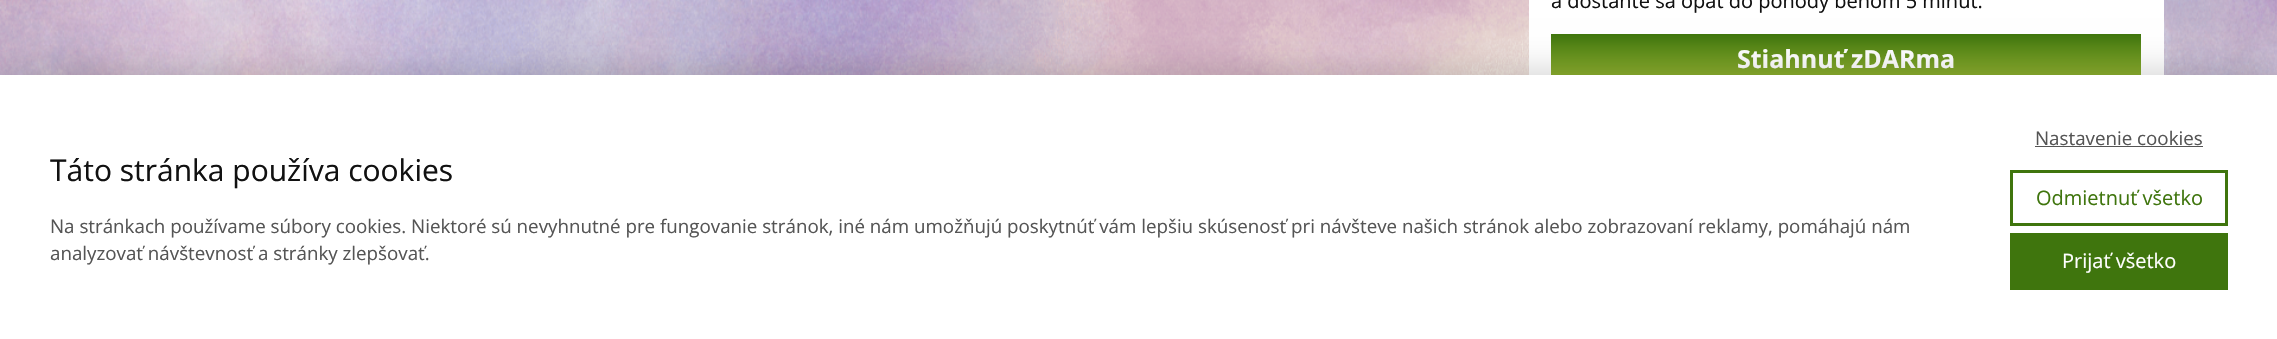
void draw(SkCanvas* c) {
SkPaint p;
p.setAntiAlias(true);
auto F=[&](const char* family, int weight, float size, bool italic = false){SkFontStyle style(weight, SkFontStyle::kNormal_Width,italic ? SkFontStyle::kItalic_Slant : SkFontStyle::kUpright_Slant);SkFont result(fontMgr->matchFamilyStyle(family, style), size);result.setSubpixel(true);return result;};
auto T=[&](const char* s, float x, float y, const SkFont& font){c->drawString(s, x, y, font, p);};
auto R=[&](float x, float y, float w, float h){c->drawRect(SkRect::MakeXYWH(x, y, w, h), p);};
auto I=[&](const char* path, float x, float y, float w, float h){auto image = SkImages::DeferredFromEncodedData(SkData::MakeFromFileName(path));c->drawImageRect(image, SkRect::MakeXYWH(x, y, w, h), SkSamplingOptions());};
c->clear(0xffffffff);
I("1.png",0,0,2277,75);
p.setColor(0xffffffff);
R(1529,0,635,75);
auto f1 = F("Open Sans",400,20);
p.setColor(0xff111111);
T("a dostaňte sa opäť do pohody behom 5 minút.",1551,8,f1);
{
const SkColor colors[] = {0xff3f750d,0xffa2c037};
const float stops[] = {0,1};
const SkPoint ends[] = {{1551,34}, {1551,86}};
p.setShader(SkGradientShader::MakeLinear(ends, colors, stops, 2, SkTileMode::kClamp));
p.setAlpha(255);
}
R(1551,34,590,41);
auto f2 = F("Open Sans",700,25);
p.setShader(nullptr);
p.setColor(0xffffffff);
T("Stiahnuť zDARma",1737,68,f2);
p.setColor(0x33000000);
p.setMaskFilter(SkMaskFilter::MakeBlur(kNormal_SkBlurStyle, 19));
c->drawRect(SkRect::MakeXYWH(0,75,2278,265),p);
p.setMaskFilter(nullptr);
p.setColor(0xffffffff);
R(0,75,2277,264);
auto f3 = F("Open Sans",400,30);
p.setColor(0xff111111);
T("Táto stránka používa cookies",50,181,f3);
auto f4 = F("Open Sans",400,18.75);
p.setColor(0xff555555);
T("Na stránkach používame súbory cookies. Niektoré sú nevyhnutné pre fungovanie stránok, iné nám umožňujú poskytnúť vám lepšiu skúsenosť pri návšteve našich stránok alebo zobrazovaní reklamy, pomáhajú nám",50,233,f4);
T("analyzovať návštevnosť a stránky zlepšovať.",50,260,f4);
T("Nastavenie cookies",2035,145,f4);
R(2035,146,168,1);
p.setStroke(true);
p.setStrokeWidth(3);
p.setColor(0xff3f750d);
c->drawRect(SkRect::MakeXYWH(2011.5,171.5,215,53),p);
p.setStroke(false);
T("Odmietnuť všetko",2036,205,f1);
R(2010,233,218,57);
p.setColor(0xffffffff);
T("Prijať všetko",2062,268,f1);
}
